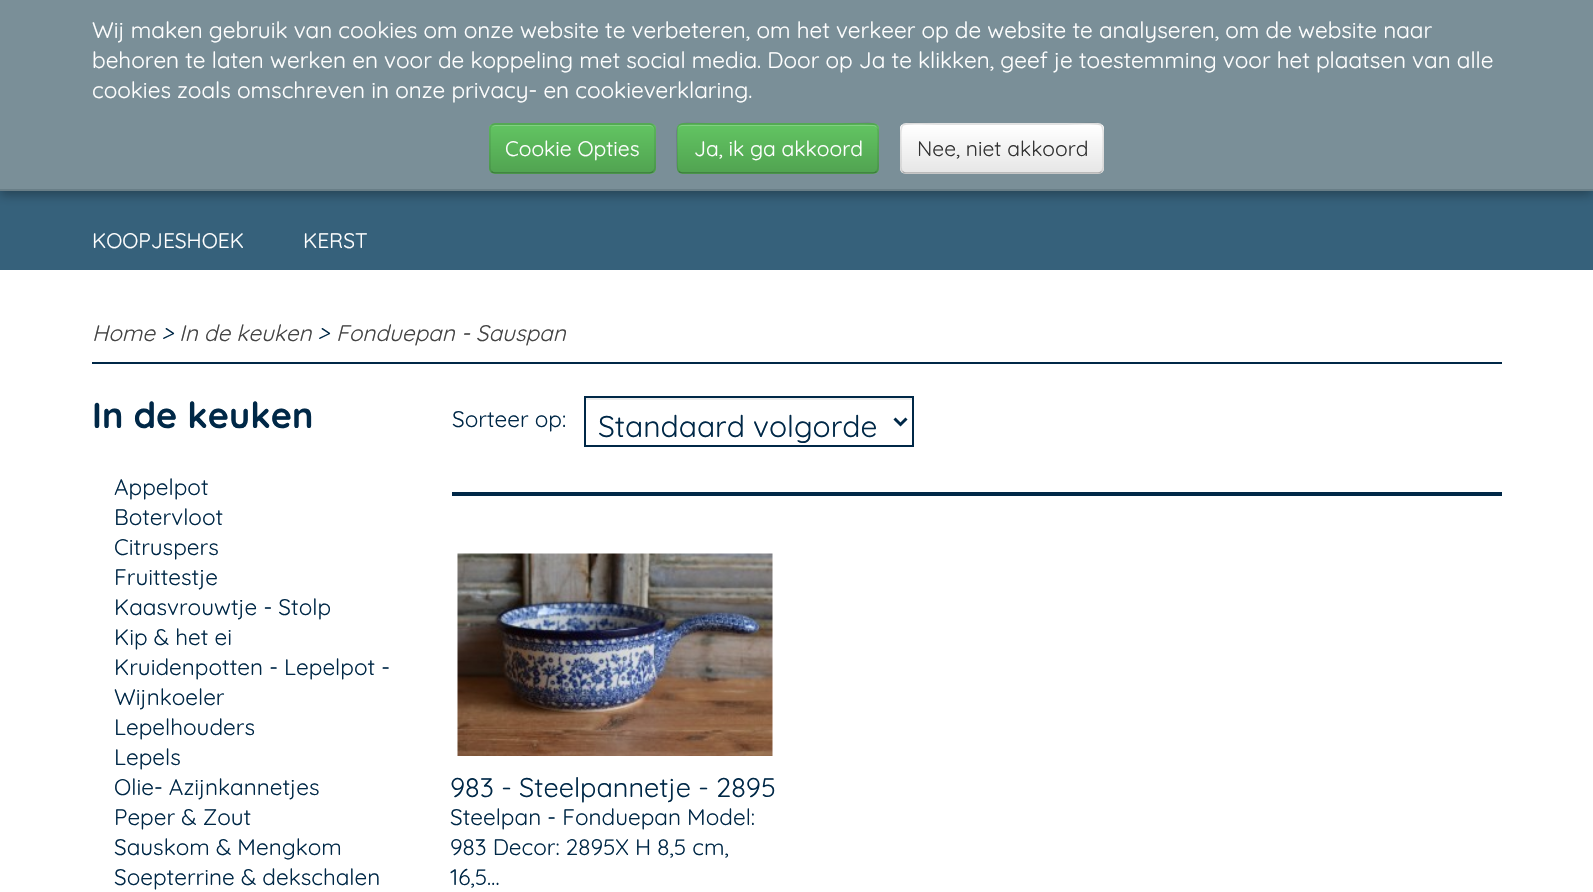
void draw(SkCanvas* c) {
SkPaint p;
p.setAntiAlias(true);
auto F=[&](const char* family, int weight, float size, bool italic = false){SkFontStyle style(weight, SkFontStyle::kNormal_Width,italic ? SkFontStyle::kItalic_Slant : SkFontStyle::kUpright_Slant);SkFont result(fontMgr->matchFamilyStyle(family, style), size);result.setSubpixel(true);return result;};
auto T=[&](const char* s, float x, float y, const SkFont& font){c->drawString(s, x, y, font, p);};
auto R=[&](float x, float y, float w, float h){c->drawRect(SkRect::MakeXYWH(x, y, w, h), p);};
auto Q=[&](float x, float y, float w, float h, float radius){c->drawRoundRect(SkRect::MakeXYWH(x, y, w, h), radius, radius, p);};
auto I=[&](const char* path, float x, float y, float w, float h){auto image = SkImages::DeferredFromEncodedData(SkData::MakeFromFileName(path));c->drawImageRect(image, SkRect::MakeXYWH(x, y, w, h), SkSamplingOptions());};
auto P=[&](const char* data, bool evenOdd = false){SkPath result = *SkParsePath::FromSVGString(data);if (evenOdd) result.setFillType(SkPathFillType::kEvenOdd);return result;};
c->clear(0xffffffff);
p.setColor(0xff36617b);
R(0,191,1593,79);
p.setColor(0x4d000000);
p.setMaskFilter(SkMaskFilter::MakeBlur(kNormal_SkBlurStyle, 5));
c->drawRect(SkRect::MakeXYWH(0,5,1593,190),p);
p.setMaskFilter(nullptr);
p.setColor(0xff7a8f98);
R(0,0,1593,189);
p.setColor(0xff697e87);
R(0,189,1593,2);
auto f1 = F("Quicksand",400,22.5);
p.setColor(0xffffffff);
T("Wij maken gebruik van cookies om onze website te verbeteren, om het verkeer op de website te analyseren, om de website naar",92,38,f1);
T("behoren te laten werken en voor de koppeling met social media. Door op Ja te klikken, geef je toestemming voor het plaatsen van alle",92,68,f1);
T("cookies zoals omschreven in onze privacy- en cookieverklaring.",92,98,f1);
p.setColor(0xff5bb75b);
Q(489,123,167,51,6);
c->save();
c->clipPath(P("M495 123h155c3.5 0 6 2.5 6 6v39c0 3.5-2.5 6-6 6h-155c-3.5 0-6-2.5-6-6v-39c0-3.5 2.5-6 6-6z"),true);
{
const SkColor colors[] = {0xff62c462,0xff51a351};
const float stops[] = {0,1};
const SkPoint ends[] = {{572,125}, {572,173}};
p.setShader(SkGradientShader::MakeLinear(ends, colors, stops, 2, SkTileMode::kClamp));
p.setAlpha(255);
}
R(489,125,167,48);
c->restore();
p.setShader(nullptr);
p.setColor(0xff81d081);
c->drawPath(P("M495 126h155c2 0 4 2 4 4c0-3-2-5-5-5h-153c-2 0-3 1-4 2z"),p);
p.setStroke(true);
p.setStrokeWidth(1.5);
p.setColor(0x40000000);
c->drawPath(P("M653 171.5c-1 1-2 1.5-3.5 1.5h-154.5c-1.5 0-2.5-.5-3.5-1.5"),p);
p.setColor(0x1a000000);
c->drawPath(P("M491.5 171.5c-1-1-1.5-2-1.5-3.5v-39c0-1.5 .5-2.5 1.5-3.5c1-1 2-1.5 3.5-1.5h154.5c1.5 0 2.5 .5 3.5 1.5c1 1 2 2 2 3.5v39c0 1.5-1 2.5-2 3.5"),p);
auto f2 = F("Quicksand",400,21);
p.setStroke(false);
p.setColor(0xffffffff);
T("Cookie Opties",505,156,f2);
p.setColor(0xff5bb75b);
Q(677,123,202,51,6);
c->save();
c->clipPath(P("M683 123h190c3.5 0 6 2.5 6 6v39c0 3.5-2.5 6-6 6h-190c-3.5 0-6-2.5-6-6v-39c0-3.5 2.5-6 6-6z"),true);
{
const SkColor colors[] = {0xff62c462,0xff51a351};
const float stops[] = {0,1};
const SkPoint ends[] = {{778,125}, {778,173}};
p.setShader(SkGradientShader::MakeLinear(ends, colors, stops, 2, SkTileMode::kClamp));
p.setAlpha(255);
}
R(677,125,202,48);
c->restore();
p.setShader(nullptr);
p.setColor(0xff81d081);
c->drawPath(P("M682 126h191c2 0 5 2 5 4c0-3-2-5-5-5h-190c-3 0-5 2-5 5c0-2 2-4 4-4z"),p);
p.setStroke(true);
p.setColor(0x40000000);
c->drawPath(P("M876.5 171.5c-1 1-2 1.5-3.5 1.5h-190.5c-1.5 0-2.5-.5-3.5-1.5"),p);
p.setColor(0x1a000000);
c->drawPath(P("M679 171.5c-2.5-2.5-2-7-2-10v-6.5c0-39-6-31 37-31h127c43.5 0 37-8 37 31v6.5c0 3 1 7.5-1.5 10"),p);
p.setStroke(false);
p.setColor(0xffffffff);
T("Ja, ik ga akkoord",694,156,f2);
p.setColor(0xfff5f5f5);
Q(900,123,204,51,6);
c->save();
c->clipPath(P("M906 123h192c3.5 0 6 2.5 6 6v39c0 3.5-2.5 6-6 6h-192c-3.5 0-6-2.5-6-6v-39c0-3.5 2.5-6 6-6z"),true);
{
const SkColor colors[] = {0xffffffff,0xffe6e6e6};
const float stops[] = {0,1};
const SkPoint ends[] = {{1002,125}, {1002,173}};
p.setShader(SkGradientShader::MakeLinear(ends, colors, stops, 2, SkTileMode::kClamp));
p.setAlpha(255);
}
R(900,125,204,48);
c->restore();
p.setShader(nullptr);
p.setColor(0x33ffffff);
c->drawPath(P("M906 126h192c2 0 4 2 4 4v41c1-1 1-2 1-3v-38c0-3-2-5-5-5h-191c-3 0-5 2-5 5c0-2 2-4 4-4z"),p);
p.setStroke(true);
p.setColor(0x40000000);
c->drawPath(P("M1101.5 171.5c-1 1-2 1.5-3.5 1.5h-192c-1.5 0-2.5-.5-3.5-1.5"),p);
p.setColor(0x1a000000);
c->drawPath(P("M902.5 171.5c-2.5-2.5-1.5-7-1.5-10v-6.5c0-39-6.5-31 37-31h128c43.5 0 37-8 37 31v6.5c0 3 1 7.5-1.5 10"),p);
p.setStroke(false);
p.setColor(0xff333333);
T("Nee, niet akkoord",917,156,f2);
p.setColor(0xffffffff);
T("KOOPJESHOEK",92,248,f2);
T("KERST",303,248,f2);
p.setColor(0xff002847);
R(92,362,1410,2);
auto f3 = F("Quicksand",400,22.5,true);
p.setColor(0xff444444);
T("Home",92,341,f3);
p.setColor(0xff002847);
T(">",161,341,f3);
p.setColor(0xff444444);
T("In de keuken",179,341,f3);
p.setColor(0xff002847);
T(">",317,341,f3);
p.setColor(0xff444444);
T("Fonduepan - Sauspan",336,341,f3);
auto f4 = F("Quicksand",700,36);
p.setColor(0xff002847);
T("In de keuken",92,428,f4);
T("Appelpot",114,495,f1);
T("Botervloot",114,525,f1);
T("Citruspers",114,555,f1);
T("Fruittestje",114,585,f1);
T("Kaasvrouwtje - Stolp",114,615,f1);
T("Kip & het ei",114,645,f1);
T("Kruidenpotten - Lepelpot -",114,675,f1);
T("Wijnkoeler",114,705,f1);
T("Lepelhouders",114,735,f1);
T("Lepels",114,765,f1);
T("Olie- Azijnkannetjes",114,795,f1);
T("Peper & Zout",114,825,f1);
T("Sauskom & Mengkom",114,855,f1);
T("Soepterrine & dekschalen",114,885,f1);
T("Sorteer op:",452,427,f1);
p.setColor(0xffececec);
R(585,398,327,2);
p.setStroke(true);
p.setStrokeWidth(2);
p.setColor(0xff002847);
c->drawRect(SkRect::MakeXYWH(585,397,328,49),p);
p.setStrokeWidth(3);
c->drawPath(P("M894.5 418.5l6 6l6-6"),p);
auto f5 = F("Quicksand",400,30);
p.setStroke(false);
T("Standaard volgorde",598,437,f5);
R(452,492,1050,4);
I("1.png",457,553,316,203);
auto f6 = F("Quicksand",400,27);
T("983 - Steelpannetje - 2895",450,797,f6);
T("Steelpan - Fonduepan Model:",450,825,f1);
T("983 Decor: 2895X H 8,5 cm,",450,855,f1);
T("16,5…",450,885,f1);
}
